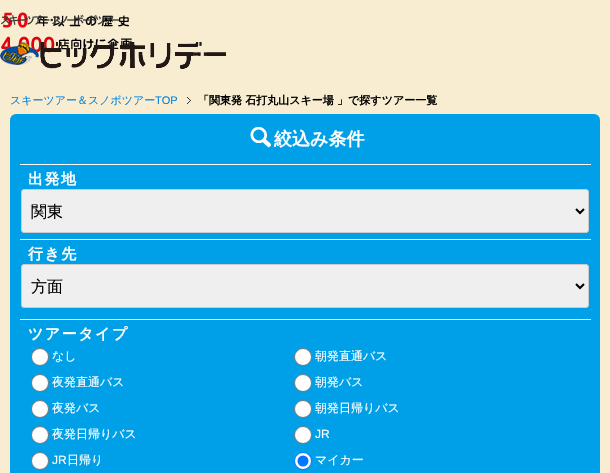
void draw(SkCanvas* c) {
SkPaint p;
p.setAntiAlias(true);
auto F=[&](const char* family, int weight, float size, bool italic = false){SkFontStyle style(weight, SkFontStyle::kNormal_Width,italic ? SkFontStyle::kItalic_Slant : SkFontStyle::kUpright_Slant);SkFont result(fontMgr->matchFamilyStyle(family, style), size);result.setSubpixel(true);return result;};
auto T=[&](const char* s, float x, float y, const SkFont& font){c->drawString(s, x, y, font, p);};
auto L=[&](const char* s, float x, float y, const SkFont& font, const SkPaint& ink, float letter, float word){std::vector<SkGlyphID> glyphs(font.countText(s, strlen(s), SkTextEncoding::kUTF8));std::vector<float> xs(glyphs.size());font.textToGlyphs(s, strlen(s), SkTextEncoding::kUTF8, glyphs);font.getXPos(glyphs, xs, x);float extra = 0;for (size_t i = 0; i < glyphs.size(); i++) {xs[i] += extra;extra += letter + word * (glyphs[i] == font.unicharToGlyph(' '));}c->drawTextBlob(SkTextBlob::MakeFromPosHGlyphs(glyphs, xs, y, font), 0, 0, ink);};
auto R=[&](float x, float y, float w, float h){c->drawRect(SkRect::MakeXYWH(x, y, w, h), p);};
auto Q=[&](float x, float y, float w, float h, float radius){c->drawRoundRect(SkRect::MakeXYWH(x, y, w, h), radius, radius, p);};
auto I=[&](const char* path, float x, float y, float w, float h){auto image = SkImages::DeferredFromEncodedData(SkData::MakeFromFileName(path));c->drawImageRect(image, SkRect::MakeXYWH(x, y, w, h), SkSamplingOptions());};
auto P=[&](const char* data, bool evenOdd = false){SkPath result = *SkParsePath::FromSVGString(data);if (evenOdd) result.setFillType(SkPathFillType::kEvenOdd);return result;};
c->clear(0xfff8edd1);
I("1.png",3,12,126,16);
I("2.png",1,36,131,17);
I("3.png",1,14,118,11);
I("4.png",0,42,226,27);
auto f1 = F("WenQuanYi Zen Hei",500,11);
p.setColor(0xff0082e2);
T("スキーツアー＆スノボツアー",10,104,f1);
auto f2 = F("Liberation Sans",400,11);
T("TOP",155,104,f2);
I("5.png",187,97,4,7);
auto f3 = F("WenQuanYi Zen Hei",700,11);
p.setColor(0xff000000);
T("「関東発 石打丸山スキー場 」で探すツアー一覧",198,104,f3);
p.setColor(0xff00a0e8);
Q(10,114,590,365,6);
I("6.png",250,127,21,21);
auto f4 = F("WenQuanYi Zen Hei",700,18);
p.setColor(0xffffffff);
T("絞込み条件",274,145,f4);
R(20,164,571,1);
auto f5 = F("WenQuanYi Zen Hei",700,15);
L("出発地",28,184,f5,p,1.5,0);
p.setColor(0xffefefef);
c->drawRoundRect(SkRect::MakeXYWH(21.5,189.5,567,43),2.5,2.5,p);
p.setStroke(true);
p.setStrokeWidth(1);
p.setColor(0xffcccccc);
c->drawRoundRect(SkRect::MakeXYWH(21.5,189.5,567,43),2.5,2.5,p);
p.setStrokeWidth(2);
p.setColor(0xff000000);
c->drawPath(P("M576 209l4 4l4-4"),p);
auto f6 = F("WenQuanYi Zen Hei",500,16);
p.setStroke(false);
T("関東",31,217,f6);
p.setColor(0xffffffff);
R(20,239,571,1);
L("行き先",28,259,f5,p,1.5,0);
p.setColor(0xffefefef);
c->drawRoundRect(SkRect::MakeXYWH(21.5,264.5,567,43),2.5,2.5,p);
p.setStroke(true);
p.setStrokeWidth(1);
p.setColor(0xffcccccc);
c->drawRoundRect(SkRect::MakeXYWH(21.5,264.5,567,43),2.5,2.5,p);
p.setStrokeWidth(2);
p.setColor(0xff000000);
c->drawPath(P("M576 284l4 4l4-4"),p);
p.setStroke(false);
T("方面",31,292,f6);
p.setColor(0xffffffff);
R(20,319,571,1);
L("ツアータイプ",28,339,f5,p,1.5,0);
c->drawCircle(40,357,8.5,p);
p.setStroke(true);
p.setStrokeWidth(1);
p.setColor(0xff767676);
c->drawCircle(40,357,8.5,p);
auto f7 = F("WenQuanYi Zen Hei",500,12);
p.setStroke(false);
p.setColor(0xffffffff);
T("なし",52,360,f7);
c->drawCircle(303,357,8.5,p);
p.setStroke(true);
p.setColor(0xff767676);
c->drawCircle(303,357,8.5,p);
p.setStroke(false);
p.setColor(0xffffffff);
T("朝発直通バス",315,360,f7);
c->drawCircle(40,383,8.5,p);
p.setStroke(true);
p.setColor(0xff767676);
c->drawCircle(40,383,8.5,p);
p.setStroke(false);
p.setColor(0xffffffff);
T("夜発直通バス",52,386,f7);
c->drawCircle(303,383,8.5,p);
p.setStroke(true);
p.setColor(0xff767676);
c->drawCircle(303,383,8.5,p);
p.setStroke(false);
p.setColor(0xffffffff);
T("朝発バス",315,386,f7);
c->drawCircle(40,409,8.5,p);
p.setStroke(true);
p.setColor(0xff767676);
c->drawCircle(40,409,8.5,p);
p.setStroke(false);
p.setColor(0xffffffff);
T("夜発バス",52,412,f7);
c->drawCircle(303,409,8.5,p);
p.setStroke(true);
p.setColor(0xff767676);
c->drawCircle(303,409,8.5,p);
p.setStroke(false);
p.setColor(0xffffffff);
T("朝発日帰りバス",315,412,f7);
c->drawCircle(40,435,8.5,p);
p.setStroke(true);
p.setColor(0xff767676);
c->drawCircle(40,435,8.5,p);
p.setStroke(false);
p.setColor(0xffffffff);
T("夜発日帰りバス",52,438,f7);
c->drawCircle(303,435,8.5,p);
p.setStroke(true);
p.setColor(0xff767676);
c->drawCircle(303,435,8.5,p);
auto f8 = F("Liberation Sans",400,12);
p.setStroke(false);
p.setColor(0xffffffff);
T("JR",315,438,f8);
c->drawCircle(40,461,8.5,p);
p.setStroke(true);
p.setColor(0xff767676);
c->drawCircle(40,461,8.5,p);
p.setStroke(false);
p.setColor(0xffffffff);
T("JR",52,464,f8);
T("日帰り",67,464,f7);
c->drawCircle(303,461,8.5,p);
p.setStroke(true);
p.setColor(0xff0075ff);
c->drawCircle(303,461,8.5,p);
p.setStroke(false);
c->drawCircle(303,461,5.5,p);
p.setColor(0xffffffff);
T("マイカー",315,464,f7);
}
